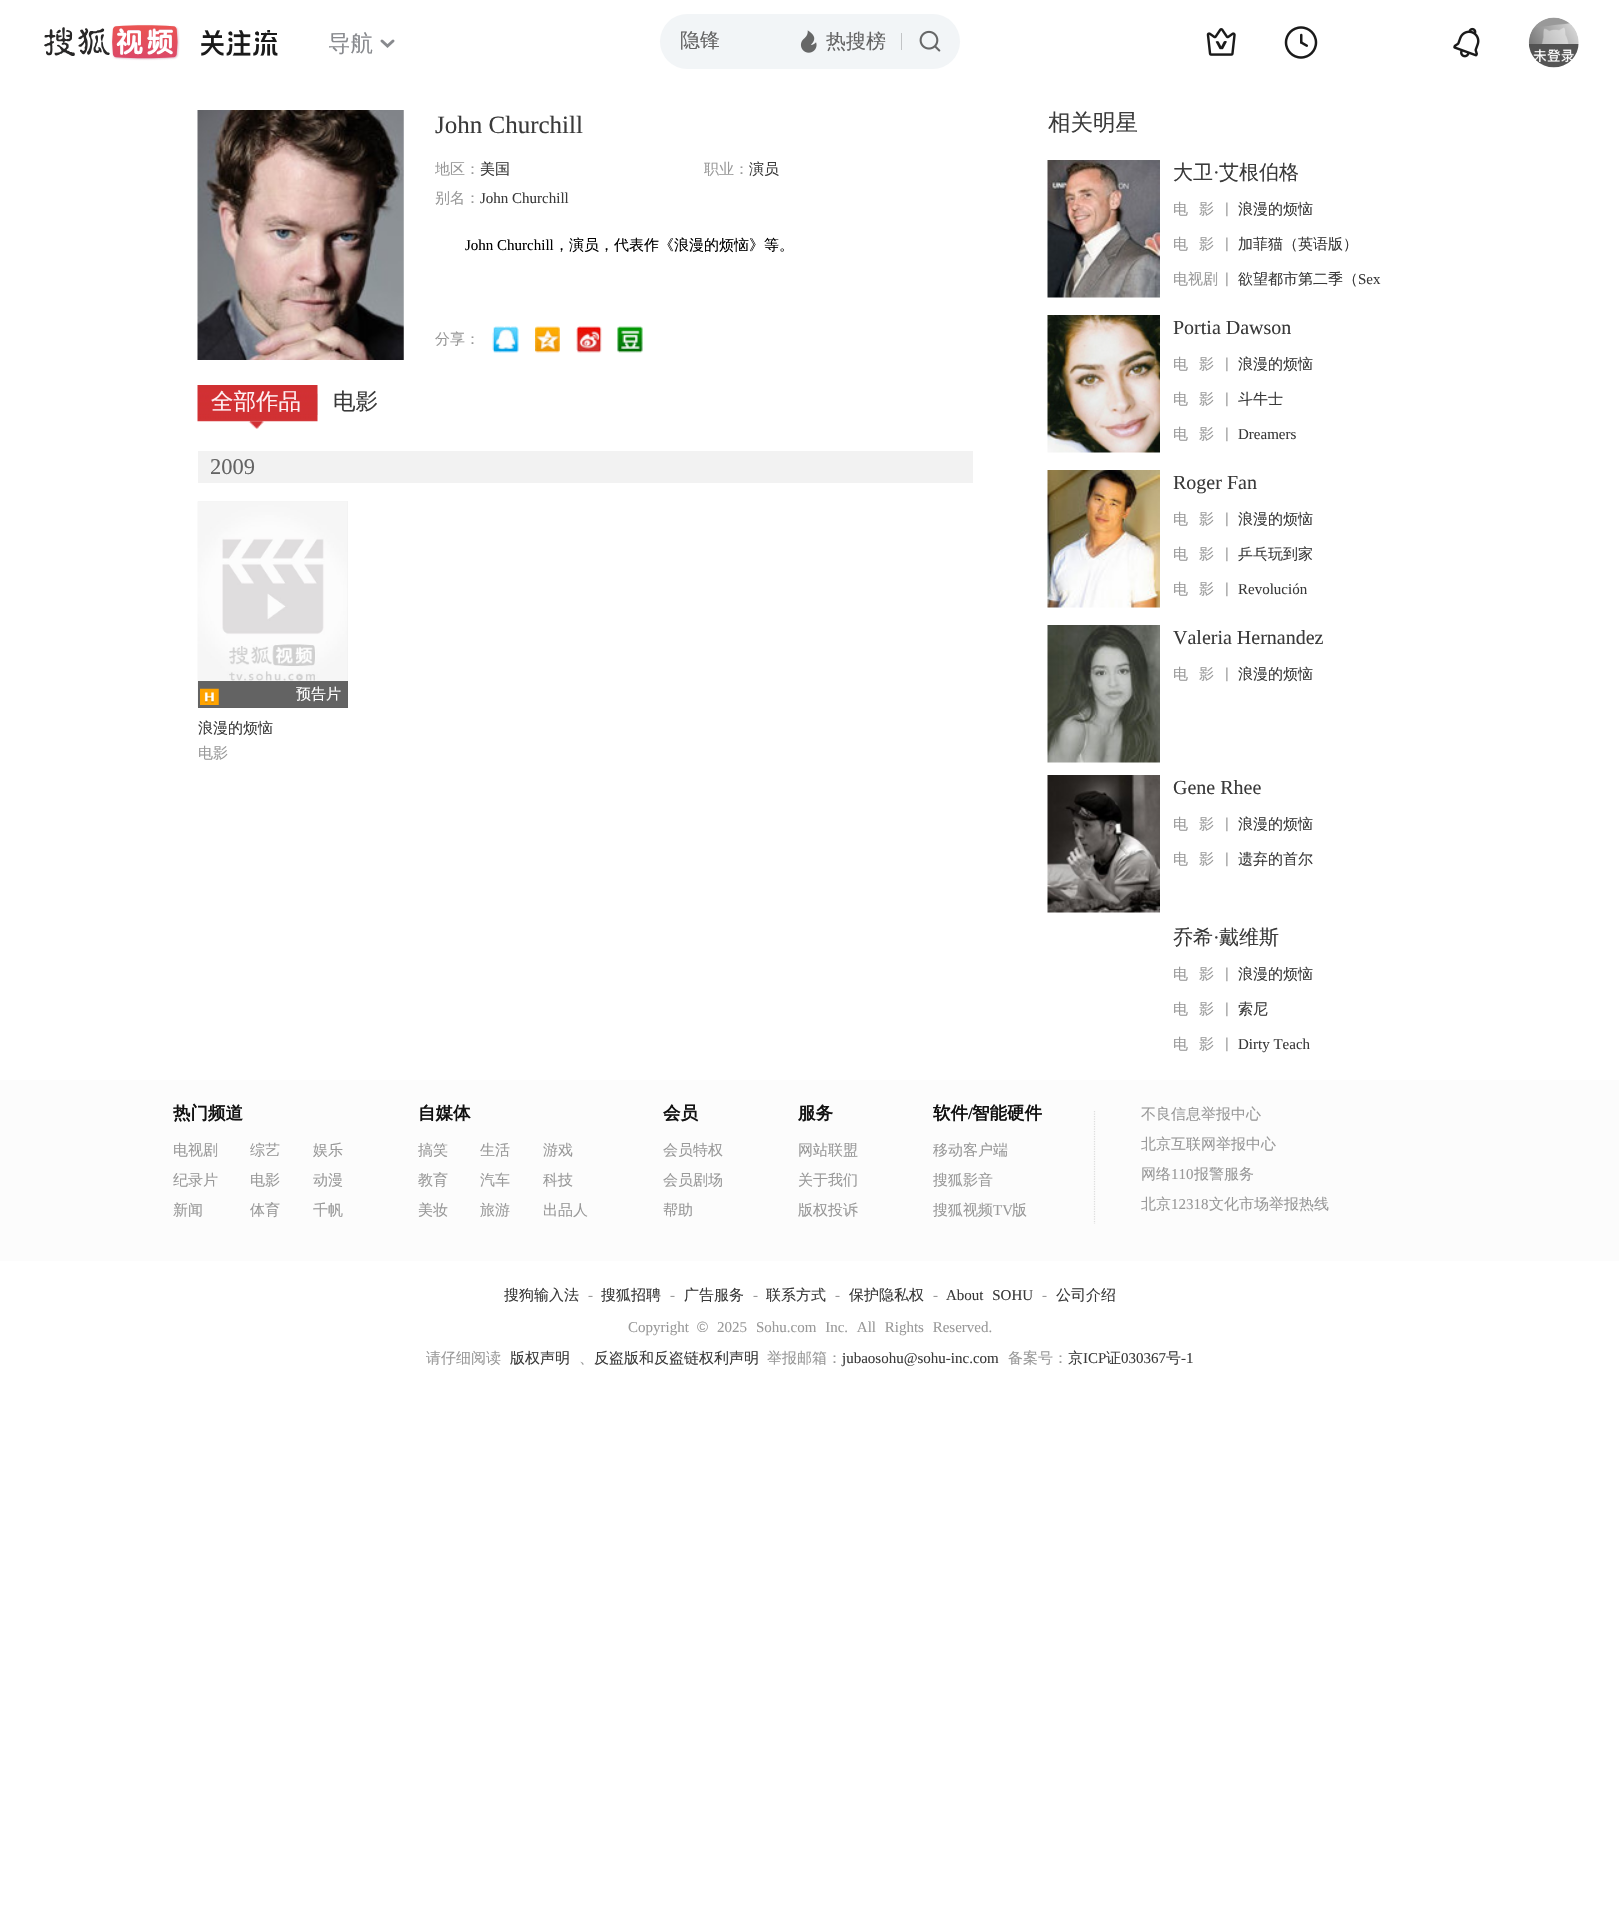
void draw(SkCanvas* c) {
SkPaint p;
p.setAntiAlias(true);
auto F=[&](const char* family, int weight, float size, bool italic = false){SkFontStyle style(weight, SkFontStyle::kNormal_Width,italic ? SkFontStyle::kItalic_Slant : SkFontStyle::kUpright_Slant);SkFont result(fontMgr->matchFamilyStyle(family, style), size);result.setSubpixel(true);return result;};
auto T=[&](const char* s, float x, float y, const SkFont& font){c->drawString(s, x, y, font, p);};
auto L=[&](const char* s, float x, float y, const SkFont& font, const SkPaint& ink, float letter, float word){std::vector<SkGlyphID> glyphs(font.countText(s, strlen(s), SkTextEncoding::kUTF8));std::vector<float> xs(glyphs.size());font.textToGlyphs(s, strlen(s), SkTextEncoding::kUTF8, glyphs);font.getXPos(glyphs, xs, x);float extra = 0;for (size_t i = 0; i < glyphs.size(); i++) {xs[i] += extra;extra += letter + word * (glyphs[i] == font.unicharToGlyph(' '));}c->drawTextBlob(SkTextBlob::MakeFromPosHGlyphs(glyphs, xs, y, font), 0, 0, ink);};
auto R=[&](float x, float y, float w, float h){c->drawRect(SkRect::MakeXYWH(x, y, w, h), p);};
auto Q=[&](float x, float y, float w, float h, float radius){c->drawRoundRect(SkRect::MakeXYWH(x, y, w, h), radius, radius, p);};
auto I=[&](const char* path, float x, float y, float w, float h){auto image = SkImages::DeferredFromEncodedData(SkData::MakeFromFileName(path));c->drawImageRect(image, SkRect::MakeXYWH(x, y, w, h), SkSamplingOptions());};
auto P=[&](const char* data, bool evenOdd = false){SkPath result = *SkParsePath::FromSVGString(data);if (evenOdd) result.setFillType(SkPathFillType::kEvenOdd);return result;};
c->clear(0xffffffff);
I("1.png",44,24,136,37);
I("2.png",201,30,77,26);
auto f1 = F("WenQuanYi Zen Hei",500,22.5);
p.setColor(0xff888a8e);
T("导航",328,51,f1);
p.setStroke(true);
p.setStrokeWidth(3);
p.setStrokeCap(SkPaint::kRound_Cap);
c->drawPath(P("M382 41l5.5 5l5.5-5"),p);
p.setStroke(false);
p.setColor(0xfff2f5f7);
Q(660,14,300,55,27.5);
auto f2 = F("WenQuanYi Zen Hei",500,20);
p.setColor(0xff646464);
T("隐锋",680,47,f2);
I("3.png",800,30,17,23);
T("热搜榜",826,48,f2);
p.setColor(0xffc2c4c6);
R(901,33,1,17);
I("4.png",919,30,22,22);
I("5.png",1206,28,30,28);
I("6.png",1284,26,34,33);
I("7.png",1453,27,27,31);
I("8.png",1528,17,51,51);
I("9.png",197,110,207,250);
auto f3 = F("Liberation Serif",400,25);
p.setColor(0xff3a3a3a);
T("John Churchill",435,133,f3);
auto f4 = F("WenQuanYi Zen Hei",500,15);
p.setColor(0xff999999);
T("地区：",435,174,f4);
p.setColor(0xff3a3a3a);
T("美国",480,174,f4);
p.setColor(0xff999999);
T("职业：",704,174,f4);
p.setColor(0xff3a3a3a);
T("演员",749,174,f4);
p.setColor(0xff999999);
T("别名：",435,203,f4);
auto f5 = F("Liberation Serif",400,15);
p.setColor(0xff3a3a3a);
T("John Churchill",480,203,f5);
p.setColor(0xff000000);
T("John Churchill",465,250,f5);
T("，演员，代表作《浪漫的烦恼》等。",554,250,f4);
p.setColor(0xff999999);
T("分享：",435,344,f4);
I("10.png",492,326,27,27);
I("11.png",535,326,25,27);
I("12.png",576,326,26,27);
I("13.png",617,326,26,27);
I("16.png",317,393,1,22);
I("14.png",197,385,121,37);
p.setColor(0xfffff0f3);
T("全部作品",211,409,f1);
I("15.png",248,421,16,8);
p.setColor(0xff3a3a3a);
T("电影",333,409,f1);
p.setColor(0xfff2f2f2);
R(198,451,775,32);
auto f6 = F("Liberation Serif",400,22.5);
p.setColor(0xff646464);
T("2009",210,474,f6);
p.setColor(0xfff0f0f0);
R(198,501,150,207);
I("17.png",197,501,151,206);
p.setColor(0x99000000);
R(198,681,150,27);
I("18.png",200,688,19,17);
p.setColor(0xffffffff);
T("预告片",296,699,f4);
p.setColor(0xff3a3a3a);
T("浪漫的烦恼",198,733,f4);
p.setColor(0xff999999);
T("电影",198,758,f4);
p.setColor(0xff3a3a3a);
T("相关明星",1048,130,f1);
I("19.png",1047,160,113,138);
T("大卫",1173,179,f2);
auto f7 = F("Liberation Serif",400,20);
T("·",1213,179,f7);
T("艾根伯格",1219,179,f2);
I("20.png",1226,202,2,15);
p.setColor(0xff999999);
T("电",1173,214,f4);
T("影",1199,214,f4);
p.setColor(0xff3a3a3a);
T("浪漫的烦恼",1238,214,f4);
I("20.png",1226,237,2,15);
p.setColor(0xff999999);
T("电",1173,249,f4);
T("影",1199,249,f4);
p.setColor(0xff3a3a3a);
T("加菲猫（英语版）",1238,249,f4);
I("20.png",1226,272,2,15);
p.setColor(0xff999999);
T("电视剧",1173,284,f4);
p.setColor(0xff3a3a3a);
T("欲望都市第二季（",1238,284,f4);
T("Sex",1358,284,f5);
I("21.png",1047,315,113,138);
T("Portia Dawson",1173,334,f7);
I("20.png",1226,357,2,15);
p.setColor(0xff999999);
T("电",1173,369,f4);
T("影",1199,369,f4);
p.setColor(0xff3a3a3a);
T("浪漫的烦恼",1238,369,f4);
I("20.png",1226,392,2,15);
p.setColor(0xff999999);
T("电",1173,404,f4);
T("影",1199,404,f4);
p.setColor(0xff3a3a3a);
T("斗牛士",1238,404,f4);
I("20.png",1226,427,2,15);
p.setColor(0xff999999);
T("电",1173,439,f4);
T("影",1199,439,f4);
p.setColor(0xff3a3a3a);
T("Dreamers",1238,439,f5);
I("22.png",1047,470,113,138);
T("Roger Fan",1173,489,f7);
I("20.png",1226,512,2,15);
p.setColor(0xff999999);
T("电",1173,524,f4);
T("影",1199,524,f4);
p.setColor(0xff3a3a3a);
T("浪漫的烦恼",1238,524,f4);
I("20.png",1226,547,2,15);
p.setColor(0xff999999);
T("电",1173,559,f4);
T("影",1199,559,f4);
p.setColor(0xff3a3a3a);
T("乒乓玩到家",1238,559,f4);
I("20.png",1226,582,2,15);
p.setColor(0xff999999);
T("电",1173,594,f4);
T("影",1199,594,f4);
p.setColor(0xff3a3a3a);
T("Revolución",1238,594,f5);
I("23.png",1047,625,113,138);
T("Valeria Hernandez",1173,644,f7);
I("20.png",1226,667,2,15);
p.setColor(0xff999999);
T("电",1173,679,f4);
T("影",1199,679,f4);
p.setColor(0xff3a3a3a);
T("浪漫的烦恼",1238,679,f4);
I("24.png",1047,775,113,138);
T("Gene Rhee",1173,794,f7);
I("20.png",1226,817,2,15);
p.setColor(0xff999999);
T("电",1173,829,f4);
T("影",1199,829,f4);
p.setColor(0xff3a3a3a);
T("浪漫的烦恼",1238,829,f4);
I("20.png",1226,852,2,15);
p.setColor(0xff999999);
T("电",1173,864,f4);
T("影",1199,864,f4);
p.setColor(0xff3a3a3a);
T("遗弃的首尔",1238,864,f4);
T("乔希",1173,944,f2);
T("·",1213,944,f7);
T("戴维斯",1219,944,f2);
I("20.png",1226,967,2,15);
p.setColor(0xff999999);
T("电",1173,979,f4);
T("影",1199,979,f4);
p.setColor(0xff3a3a3a);
T("浪漫的烦恼",1238,979,f4);
I("20.png",1226,1002,2,15);
p.setColor(0xff999999);
T("电",1173,1014,f4);
T("影",1199,1014,f4);
p.setColor(0xff3a3a3a);
T("索尼",1238,1014,f4);
I("20.png",1226,1037,2,15);
p.setColor(0xff999999);
T("电",1173,1049,f4);
T("影",1199,1049,f4);
p.setColor(0xff3a3a3a);
T("Dirty Teach",1238,1049,f5);
p.setColor(0xfffcfcfc);
R(0,1080,1619,181);
auto f8 = F("WenQuanYi Zen Hei",700,17.5);
p.setColor(0xff111111);
T("热门频道",173,1119,f8);
p.setColor(0xff999999);
T("电视剧",173,1155,f4);
T("纪录片",173,1185,f4);
T("新闻",173,1215,f4);
T("综艺",250,1155,f4);
T("电影",250,1185,f4);
T("体育",250,1215,f4);
T("娱乐",313,1155,f4);
T("动漫",313,1185,f4);
T("千帆",313,1215,f4);
p.setColor(0xff111111);
T("自媒体",418,1119,f8);
p.setColor(0xff999999);
T("搞笑",418,1155,f4);
T("教育",418,1185,f4);
T("美妆",418,1215,f4);
T("生活",480,1155,f4);
T("汽车",480,1185,f4);
T("旅游",480,1215,f4);
T("游戏",543,1155,f4);
T("科技",543,1185,f4);
T("出品人",543,1215,f4);
p.setColor(0xff111111);
T("会员",663,1119,f8);
p.setColor(0xff999999);
T("会员特权",663,1155,f4);
T("会员剧场",663,1185,f4);
T("帮助",663,1215,f4);
p.setColor(0xff111111);
T("服务",798,1119,f8);
p.setColor(0xff999999);
T("网站联盟",798,1155,f4);
T("关于我们",798,1185,f4);
T("版权投诉",798,1215,f4);
p.setColor(0xff111111);
T("软件",933,1119,f8);
auto f9 = F("Liberation Serif",700,17.5);
T("/",968,1119,f9);
T("智能硬件",972,1119,f8);
p.setColor(0xff999999);
T("移动客户端",933,1155,f4);
T("搜狐影音",933,1185,f4);
T("搜狐视频",933,1215,f4);
T("TV",993,1215,f5);
T("版",1012,1215,f4);
p.setStroke(true);
p.setStrokeWidth(1.2);
p.setStrokeCap(SkPaint::kButt_Cap);
p.setColor(0xffdddddd);
p.setPathEffect(SkDashPathEffect::Make({{1.25f,1.25f}}, 0));
c->drawPath(P("M1094.5 1111v113"),p);
p.setPathEffect(nullptr);
p.setStroke(false);
p.setColor(0xff999999);
T("不良信息举报中心",1141,1119,f4);
T("北京互联网举报中心",1141,1149,f4);
T("网络",1141,1179,f4);
T("110",1171,1179,f5);
T("报警服务",1194,1179,f4);
T("北京",1141,1209,f4);
T("12318",1171,1209,f5);
T("文化市场举报热线",1209,1209,f4);
p.setColor(0xff3a3a3a);
T("搜狗输入法",504,1300,f4);
p.setColor(0xff999999);
T("-",588,1300,f5);
p.setColor(0xff3a3a3a);
T("搜狐招聘",601,1300,f4);
p.setColor(0xff999999);
T("-",670,1300,f5);
p.setColor(0xff3a3a3a);
T("广告服务",684,1300,f4);
p.setColor(0xff999999);
T("-",753,1300,f5);
p.setColor(0xff3a3a3a);
T("联系方式",766,1300,f4);
p.setColor(0xff999999);
T("-",835,1300,f5);
p.setColor(0xff3a3a3a);
T("保护隐私权",849,1300,f4);
p.setColor(0xff999999);
T("-",933,1300,f5);
p.setColor(0xff3a3a3a);
L("About SOHU",946,1300,f5,p,0,5);
p.setColor(0xff999999);
T("-",1042,1300,f5);
p.setColor(0xff3a3a3a);
T("公司介绍",1056,1300,f4);
p.setColor(0xff999999);
T("Copyright",628,1332,f5);
auto f10 = F("Liberation Sans",400,15);
T("©",697,1332,f10);
T("2025",717,1332,f5);
L("Sohu.com Inc. All Rights Reserved.",756,1332,f5,p,0,5);
T("请仔细阅读",426,1363,f4);
p.setColor(0xff3a3a3a);
T("版权声明",510,1363,f4);
p.setColor(0xff999999);
T("、",579,1363,f4);
p.setColor(0xff3a3a3a);
T("反盗版和反盗链权利声明",594,1363,f4);
p.setColor(0xff999999);
T("举报邮箱：",767,1363,f4);
p.setColor(0xff3a3a3a);
T("jubaosohu@sohu-inc.com",842,1363,f5);
p.setColor(0xff999999);
T("备案号：",1008,1363,f4);
p.setColor(0xff3a3a3a);
T("京",1068,1363,f4);
T("ICP",1083,1363,f5);
T("证",1106,1363,f4);
T("030367",1121,1363,f5);
T("号",1166,1363,f4);
T("-1",1181,1363,f5);
}
